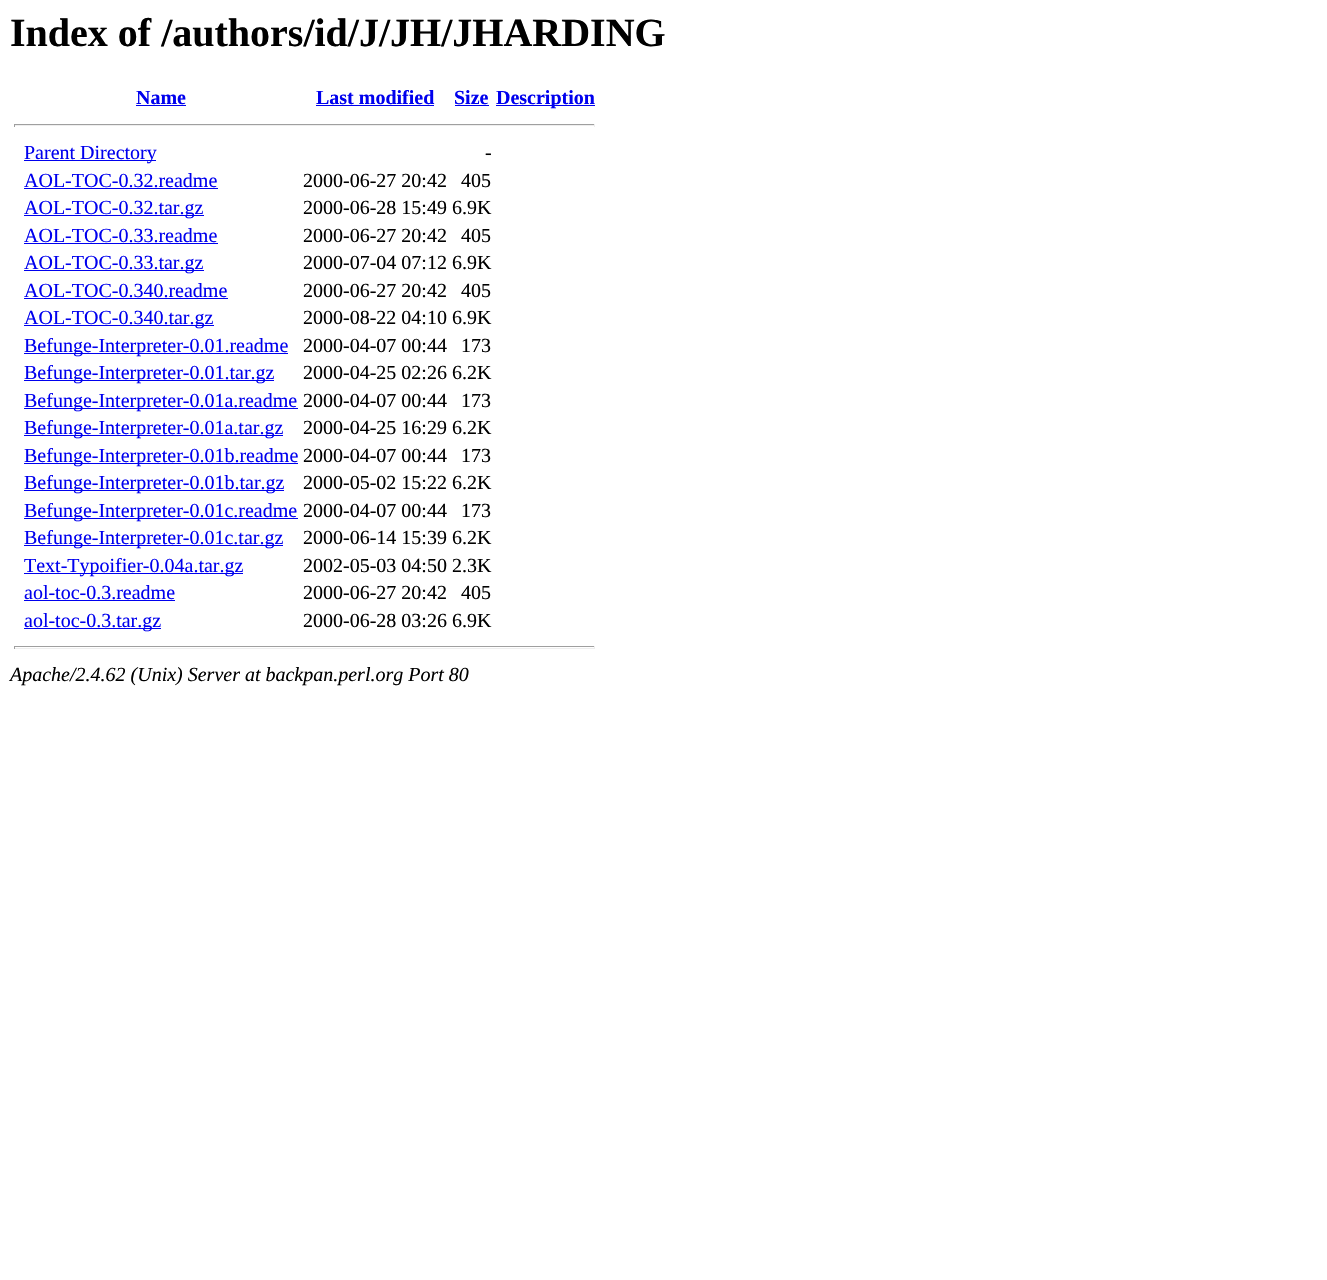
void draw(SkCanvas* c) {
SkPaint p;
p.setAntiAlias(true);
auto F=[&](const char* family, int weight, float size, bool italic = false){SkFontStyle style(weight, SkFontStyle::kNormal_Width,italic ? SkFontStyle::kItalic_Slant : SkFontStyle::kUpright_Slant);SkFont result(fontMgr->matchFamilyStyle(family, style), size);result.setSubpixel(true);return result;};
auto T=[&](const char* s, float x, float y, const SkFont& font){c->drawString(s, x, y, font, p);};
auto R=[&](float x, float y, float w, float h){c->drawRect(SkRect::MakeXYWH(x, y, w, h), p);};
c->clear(0xffffffff);
auto f1 = F("Liberation Serif",700,40);
p.setColor(0xff000000);
T("Index of /authors/id/J/JH/JHARDING",10,46,f1);
auto f2 = F("Liberation Serif",700,20);
p.setColor(0xff0000ee);
T("Name",136,104,f2);
R(136,105,50,1);
T("Last modified",316,104,f2);
R(316,105,118,1);
T("Size",454,104,f2);
R(455,105,34,1);
R(496,105,99,1);
T("Description",496,104,f2);
p.setColor(0xff9f9f9f);
R(14,124,581,1);
p.setColor(0xffeeeeee);
R(594,124,1,3);
R(14,125,581,1);
p.setColor(0xff9f9f9f);
R(14,124,1,3);
p.setColor(0xff0000ee);
R(24,160,132,1);
auto f3 = F("Liberation Serif",400,20);
T("Parent Directory",24,159,f3);
p.setColor(0xff000000);
T("-",485,159,f3);
p.setColor(0xff0000ee);
T("AOL-TOC-0.32.readme",24,187,f3);
R(24,188,194,1);
p.setColor(0xff000000);
T("2000-06-27 20:42",303,187,f3);
T("405",461,187,f3);
p.setColor(0xff0000ee);
R(24,215,180,1);
T("AOL-TOC-0.32.tar.gz",24,214,f3);
p.setColor(0xff000000);
T("2000-06-28 15:49 6.9K",303,214,f3);
p.setColor(0xff0000ee);
T("AOL-TOC-0.33.readme",24,242,f3);
R(24,243,194,1);
p.setColor(0xff000000);
T("2000-06-27 20:42",303,242,f3);
T("405",461,242,f3);
p.setColor(0xff0000ee);
R(24,270,180,1);
T("AOL-TOC-0.33.tar.gz",24,269,f3);
p.setColor(0xff000000);
T("2000-07-04 07:12 6.9K",303,269,f3);
p.setColor(0xff0000ee);
T("AOL-TOC-0.340.readme",24,297,f3);
R(24,298,204,1);
p.setColor(0xff000000);
T("2000-06-27 20:42",303,297,f3);
T("405",461,297,f3);
p.setColor(0xff0000ee);
R(24,325,190,1);
T("AOL-TOC-0.340.tar.gz",24,324,f3);
p.setColor(0xff000000);
T("2000-08-22 04:10 6.9K",303,324,f3);
p.setColor(0xff0000ee);
R(24,353,264,1);
T("Befunge-Interpreter-0.01.readme",24,352,f3);
p.setColor(0xff000000);
T("2000-04-07 00:44",303,352,f3);
T("173",461,352,f3);
p.setColor(0xff0000ee);
R(24,380,250,1);
T("Befunge-Interpreter-0.01.tar.gz",24,379,f3);
p.setColor(0xff000000);
T("2000-04-25 02:26 6.2K",303,379,f3);
p.setColor(0xff0000ee);
R(24,408,274,1);
T("Befunge-Interpreter-0.01a.readme",24,407,f3);
p.setColor(0xff000000);
T("2000-04-07 00:44",303,407,f3);
T("173",461,407,f3);
p.setColor(0xff0000ee);
R(24,435,259,1);
T("Befunge-Interpreter-0.01a.tar.gz",24,434,f3);
p.setColor(0xff000000);
T("2000-04-25 16:29 6.2K",303,434,f3);
p.setColor(0xff0000ee);
R(24,463,274,1);
T("Befunge-Interpreter-0.01b.readme",24,462,f3);
p.setColor(0xff000000);
T("2000-04-07 00:44",303,462,f3);
T("173",461,462,f3);
p.setColor(0xff0000ee);
R(24,490,260,1);
T("Befunge-Interpreter-0.01b.tar.gz",24,489,f3);
p.setColor(0xff000000);
T("2000-05-02 15:22 6.2K",303,489,f3);
p.setColor(0xff0000ee);
R(24,518,274,1);
T("Befunge-Interpreter-0.01c.readme",24,517,f3);
p.setColor(0xff000000);
T("2000-04-07 00:44",303,517,f3);
T("173",461,517,f3);
p.setColor(0xff0000ee);
R(24,545,259,1);
T("Befunge-Interpreter-0.01c.tar.gz",24,544,f3);
p.setColor(0xff000000);
T("2000-06-14 15:39 6.2K",303,544,f3);
p.setColor(0xff0000ee);
R(24,573,219,1);
T("Text-Typoifier-0.04a.tar.gz",24,572,f3);
p.setColor(0xff000000);
T("2002-05-03 04:50 2.3K",303,572,f3);
p.setColor(0xff0000ee);
T("aol-toc-0.3.readme",24,599,f3);
R(24,600,151,1);
p.setColor(0xff000000);
T("2000-06-27 20:42",303,599,f3);
T("405",461,599,f3);
p.setColor(0xff0000ee);
R(24,628,137,1);
T("aol-toc-0.3.tar.gz",24,627,f3);
p.setColor(0xff000000);
T("2000-06-28 03:26 6.9K",303,627,f3);
p.setColor(0xff9f9f9f);
R(14,646,581,1);
p.setColor(0xffeeeeee);
R(594,646,1,3);
R(14,648,581,1);
p.setColor(0xff9f9f9f);
R(14,646,1,3);
auto f4 = F("Liberation Serif",400,20,true);
p.setColor(0xff000000);
T("Apache/2.4.62 (Unix) Server at backpan.perl.org Port 80",10,681,f4);
}
